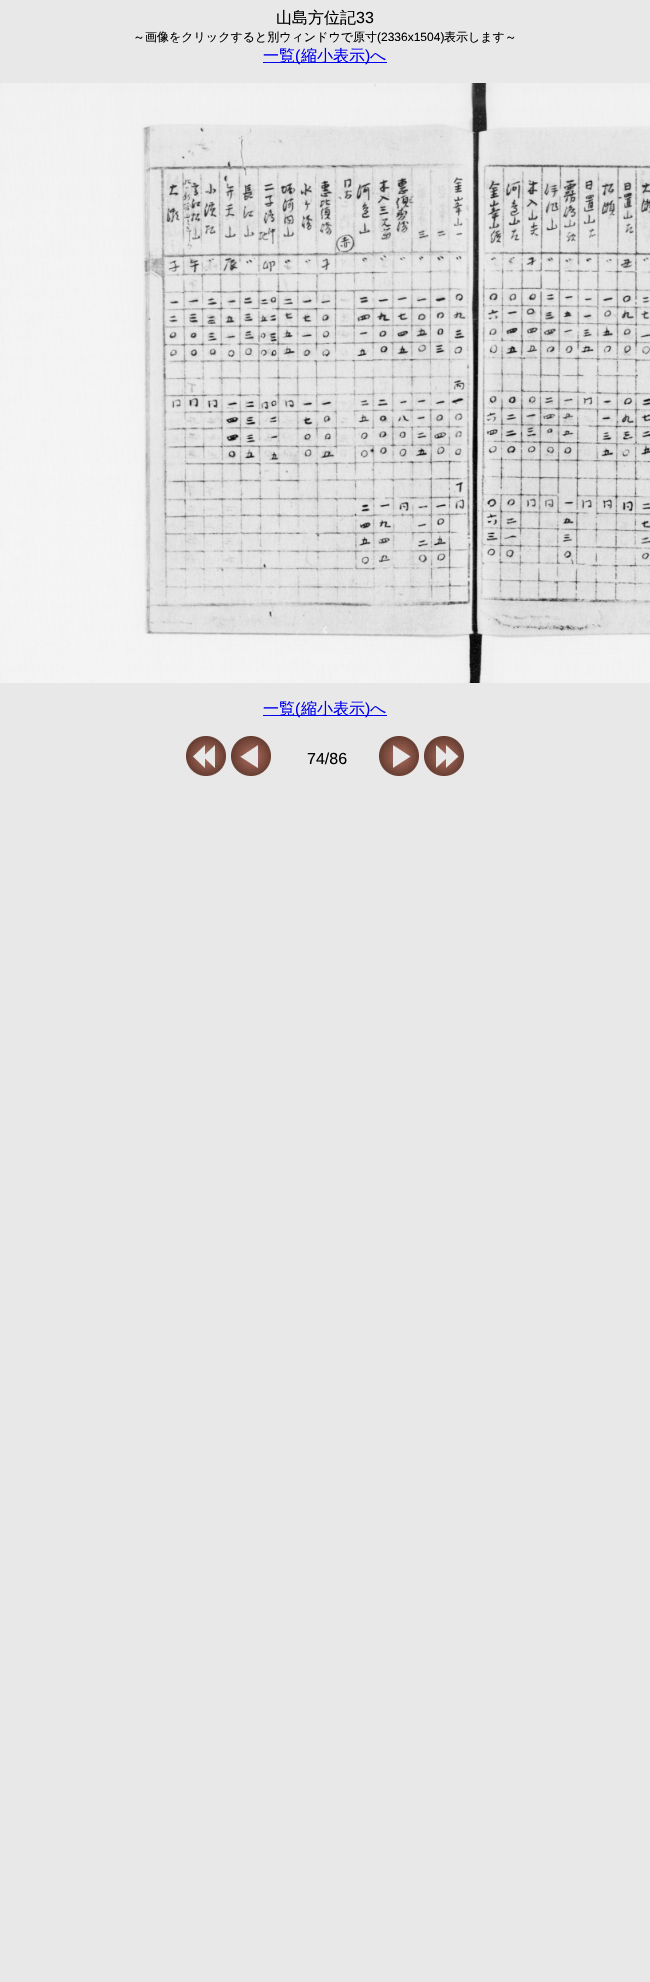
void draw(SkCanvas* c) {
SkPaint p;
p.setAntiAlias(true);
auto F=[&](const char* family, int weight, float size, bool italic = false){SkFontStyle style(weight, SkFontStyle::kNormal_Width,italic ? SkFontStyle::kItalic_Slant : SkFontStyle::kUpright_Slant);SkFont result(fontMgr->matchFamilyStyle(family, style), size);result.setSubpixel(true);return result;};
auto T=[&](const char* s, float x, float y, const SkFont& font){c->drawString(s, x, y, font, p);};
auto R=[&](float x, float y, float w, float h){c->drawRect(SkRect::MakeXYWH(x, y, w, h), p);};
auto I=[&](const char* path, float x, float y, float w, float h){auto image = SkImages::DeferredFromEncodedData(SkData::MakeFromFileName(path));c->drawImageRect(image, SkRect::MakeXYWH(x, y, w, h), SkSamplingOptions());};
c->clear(0xffe8e8e8);
auto f1 = F("WenQuanYi Zen Hei",500,16);
p.setColor(0xff000000);
T("山島方位記",276,23,f1);
auto f2 = F("Liberation Sans",400,16);
T("33",356,23,f2);
auto f3 = F("WenQuanYi Zen Hei",500,12);
T("～画像をクリックすると別ウィンドウで原寸",133,41,f3);
auto f4 = F("Liberation Sans",400,12);
T("(2336x1504)",377,41,f4);
T("表示します～",444,41,f3);
p.setColor(0xff0000ee);
R(263,62,124,1);
T("一覧",263,61,f1);
T("(",295,61,f2);
T("縮小表示",301,61,f1);
T(")",365,61,f2);
T("へ",370,61,f1);
I("1.png",0,83,650,600);
R(263,715,124,1);
T("一覧",263,714,f1);
T("(",295,714,f2);
T("縮小表示",301,714,f1);
T(")",365,714,f2);
T("へ",370,714,f1);
I("2.png",186,736,40,40);
I("3.png",231,736,40,40);
p.setColor(0xff000000);
T("74/86",307,764,f2);
I("4.png",379,736,40,40);
I("5.png",424,736,40,40);
}
